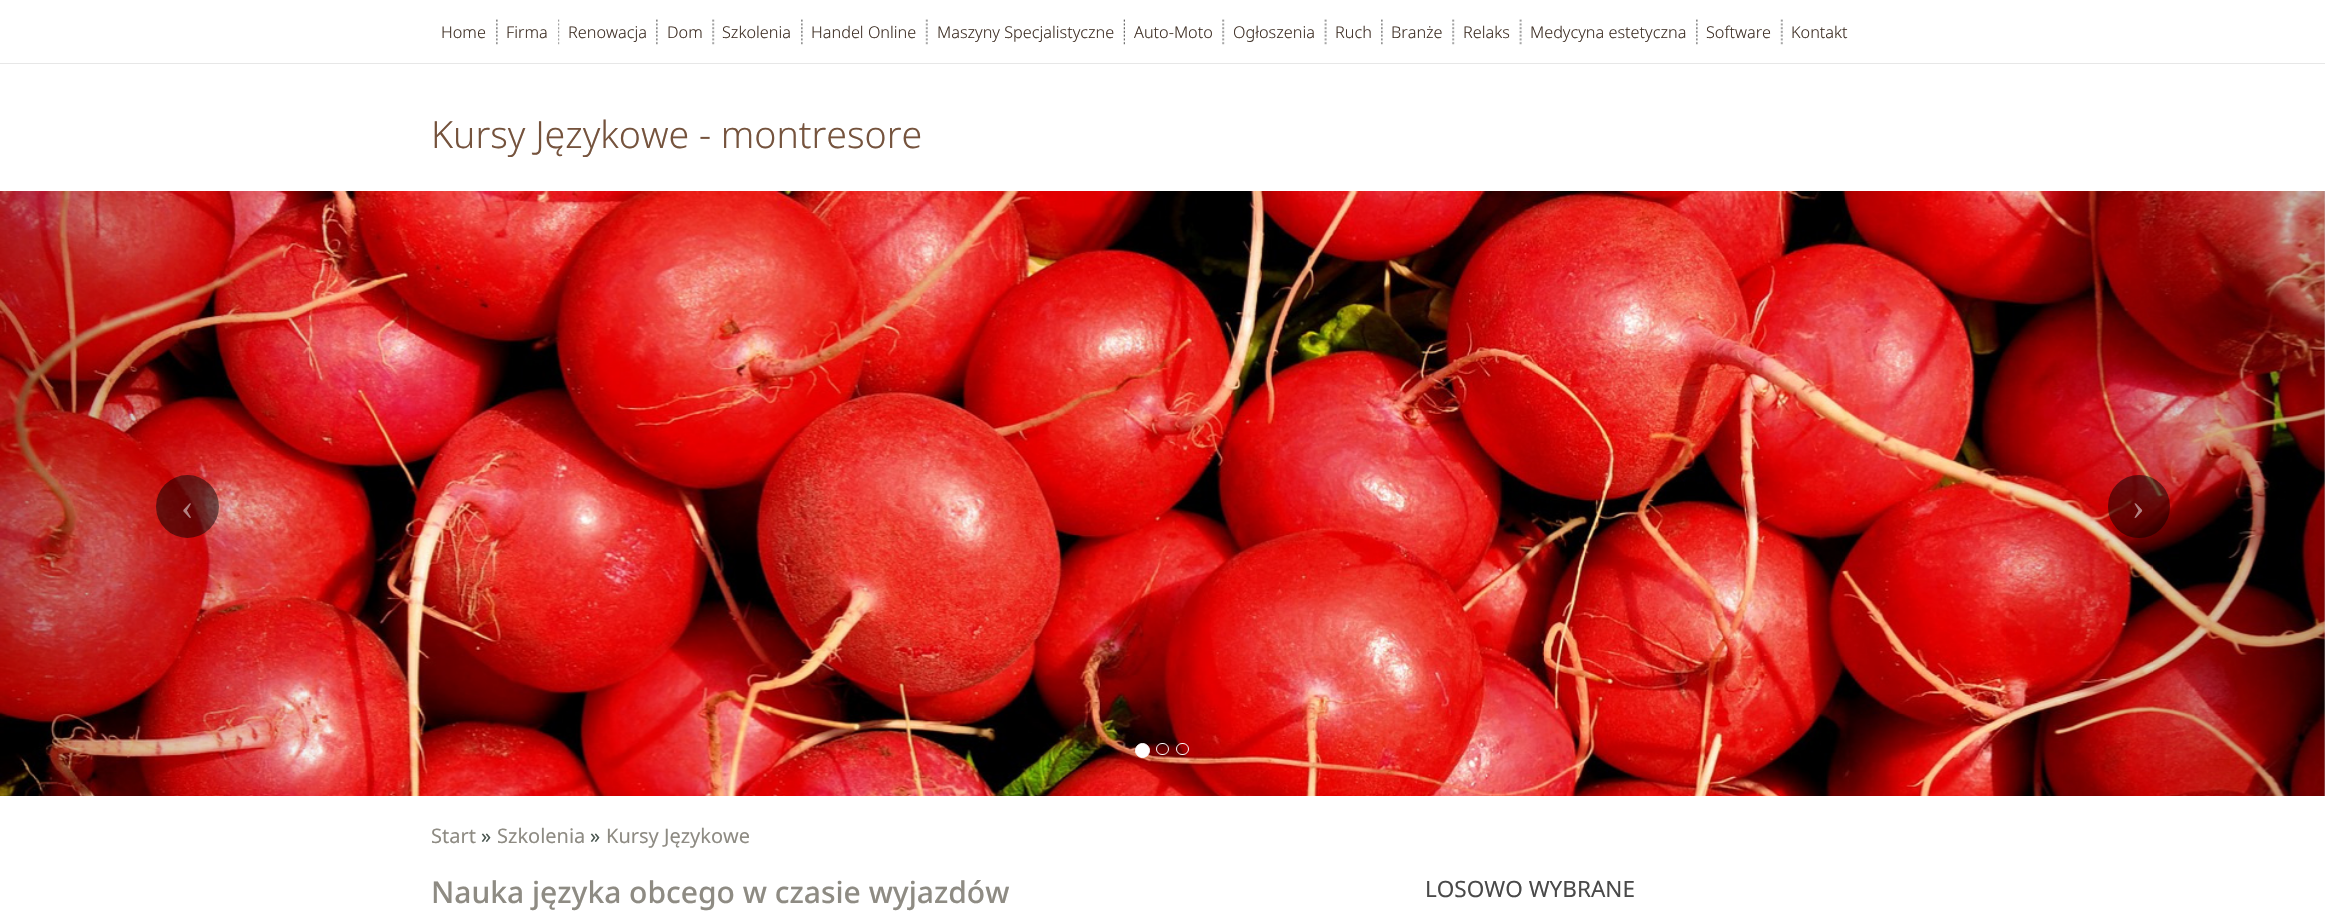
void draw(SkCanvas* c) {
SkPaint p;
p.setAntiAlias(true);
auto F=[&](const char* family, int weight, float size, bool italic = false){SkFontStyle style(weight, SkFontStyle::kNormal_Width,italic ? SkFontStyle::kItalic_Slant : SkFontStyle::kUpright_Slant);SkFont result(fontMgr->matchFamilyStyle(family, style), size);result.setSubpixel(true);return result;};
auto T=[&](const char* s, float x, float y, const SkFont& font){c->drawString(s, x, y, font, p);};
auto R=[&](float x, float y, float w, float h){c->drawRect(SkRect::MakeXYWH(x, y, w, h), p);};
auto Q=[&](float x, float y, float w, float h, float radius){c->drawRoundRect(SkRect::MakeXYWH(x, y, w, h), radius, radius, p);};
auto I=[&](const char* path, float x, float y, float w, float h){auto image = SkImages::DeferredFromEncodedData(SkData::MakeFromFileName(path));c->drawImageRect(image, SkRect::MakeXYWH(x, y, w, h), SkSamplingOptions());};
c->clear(0xffffffff);
p.setColor(0xffe7e7e7);
R(0,63,2325,1);
auto f1 = F("Noto Sans",300,16.25);
p.setColor(0xff423329);
T("Home",441,38,f1);
I("1.png",496,19,2,26);
T("Firma",506,38,f1);
I("2.png",558,19,2,26);
T("Renowacja",568,38,f1);
I("1.png",656,19,2,26);
T("Dom",667,38,f1);
I("3.png",712,19,3,26);
T("Szkolenia",722,38,f1);
I("1.png",801,19,2,26);
T("Handel Online",811,38,f1);
I("4.png",925,19,3,26);
T("Maszyny Specjalistyczne",937,38,f1);
I("5.png",1123,19,2,26);
T("Auto-Moto",1134,38,f1);
I("6.png",1222,19,3,26);
T("Ogłoszenia",1233,38,f1);
I("7.png",1324,19,3,26);
T("Ruch",1335,38,f1);
I("1.png",1381,19,2,26);
T("Branże",1391,38,f1);
I("3.png",1452,19,3,26);
T("Relaks",1463,38,f1);
I("7.png",1519,19,3,26);
T("Medycyna estetyczna",1530,38,f1);
I("1.png",1696,19,2,26);
T("Software",1706,38,f1);
I("4.png",1780,19,3,26);
T("Kontakt",1791,38,f1);
auto f2 = F("Noto Sans",300,37.5);
p.setColor(0xff75533d);
T("Kursy Językowe - montresore",431,148,f2);
I("8.png",0,191,2325,605);
p.setColor(0x80000000);
c->drawCircle(187.5,506.5,31.5,p);
auto f3 = F("Liberation Serif",400,37.5);
p.setColor(0xffb28282);
T("‹",181,519,f3);
{
const SkColor colors[] = {0x00000000,0x40000000};
const float stops[] = {0,1};
const SkPoint ends[] = {{1976,494}, {2325,494}};
p.setShader(SkGradientShader::MakeLinear(ends, colors, stops, 2, SkTileMode::kClamp));
p.setAlpha(255);
}
R(2006,191,319,605);
p.setShader(nullptr);
p.setColor(0x80000000);
Q(2108,475,62,63,31);
p.setColor(0xffb28282);
T("›",2132,519,f3);
p.setColor(0xffffffff);
c->drawCircle(1142.5,750.5,7,p);
p.setStroke(true);
p.setStrokeWidth(1);
c->drawCircle(1142.5,750.5,7,p);
c->drawRoundRect(SkRect::MakeXYWH(1156.5,743.5,12,11),5.5,5.5,p);
c->drawRoundRect(SkRect::MakeXYWH(1176.5,743.5,12,11),5.5,5.5,p);
auto f4 = F("Noto Sans",400,20);
p.setStroke(false);
p.setColor(0xff8e8b83);
T("Start",431,843,f4);
p.setColor(0xff4b5751);
T("»",481,843,f4);
p.setColor(0xff8e8b83);
T("Szkolenia",497,843,f4);
p.setColor(0xff4b5751);
T("»",590,843,f4);
p.setColor(0xff8e8b83);
T("Kursy Językowe",606,843,f4);
auto f5 = F("Noto Sans",500,30);
T("Nauka języka obcego w czasie wyjazdów",431,903,f5);
auto f6 = F("Noto Sans",400,22.5);
p.setColor(0xff494949);
T("LOSOWO WYBRANE",1425,897,f6);
}
